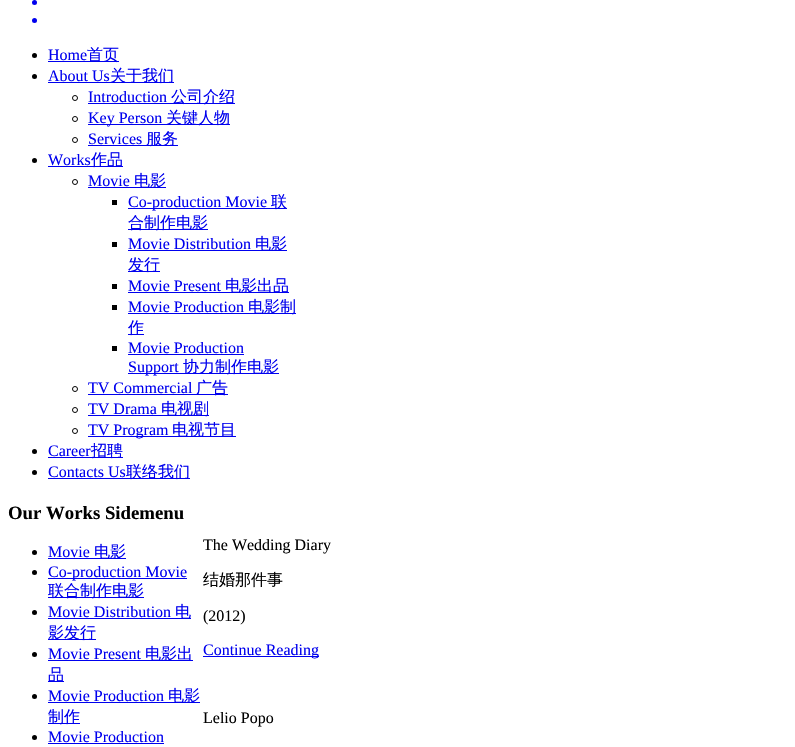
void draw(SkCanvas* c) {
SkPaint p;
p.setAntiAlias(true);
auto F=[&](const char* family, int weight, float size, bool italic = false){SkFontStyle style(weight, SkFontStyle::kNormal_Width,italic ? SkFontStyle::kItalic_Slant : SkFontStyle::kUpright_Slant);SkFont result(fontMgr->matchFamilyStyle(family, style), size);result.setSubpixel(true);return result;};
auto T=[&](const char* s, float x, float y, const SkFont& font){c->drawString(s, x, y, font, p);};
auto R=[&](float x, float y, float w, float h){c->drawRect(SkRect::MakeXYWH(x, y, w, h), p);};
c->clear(0xffffffff);
p.setColor(0xff0000ee);
c->drawCircle(34.5,2.5,2.5,p);
c->drawCircle(34.5,20.5,2.5,p);
p.setColor(0xff000000);
c->drawCircle(34.5,55.5,2.5,p);
auto f1 = F("Liberation Serif",400,16);
p.setColor(0xff0000ee);
T("Home",48,60,f1);
R(48,61,71,1);
auto f2 = F("WenQuanYi Zen Hei",500,16);
T("首页",87,60,f2);
p.setColor(0xff000000);
c->drawCircle(34.5,76.5,2.5,p);
p.setColor(0xff0000ee);
T("About Us",48,81,f1);
R(48,82,126,1);
T("关于我们",110,81,f2);
p.setStroke(true);
p.setStrokeWidth(1);
p.setColor(0xff000000);
c->drawCircle(75,98,2.5,p);
p.setStroke(false);
p.setColor(0xff0000ee);
T("Introduction",88,102,f1);
R(88,103,147,1);
T("公司介绍",171,102,f2);
p.setStroke(true);
p.setColor(0xff000000);
c->drawCircle(75,119,2.5,p);
p.setStroke(false);
p.setColor(0xff0000ee);
R(88,124,142,1);
T("Key Person",88,123,f1);
T("关键人物",166,123,f2);
p.setStroke(true);
p.setColor(0xff000000);
c->drawCircle(75,140,2.5,p);
p.setStroke(false);
p.setColor(0xff0000ee);
T("Services",88,144,f1);
R(88,145,90,1);
T("服务",146,144,f2);
p.setColor(0xff000000);
c->drawCircle(34.5,160.5,2.5,p);
p.setColor(0xff0000ee);
T("Works",48,165,f1);
R(48,166,75,1);
T("作品",91,165,f2);
p.setStroke(true);
p.setColor(0xff000000);
c->drawCircle(75,182,2.5,p);
p.setStroke(false);
p.setColor(0xff0000ee);
T("Movie",88,186,f1);
R(88,187,78,1);
T("电影",134,186,f2);
p.setColor(0xff000000);
R(112,200,5,5);
p.setColor(0xff0000ee);
R(128,208,159,1);
T("Co-production Movie",128,207,f1);
T("联",271,207,f2);
R(128,229,80,1);
T("合制作电影",128,228,f2);
p.setColor(0xff000000);
R(112,242,5,5);
p.setColor(0xff0000ee);
T("Movie Distribution",128,249,f1);
R(128,250,159,1);
T("电影",255,249,f2);
R(128,271,32,1);
T("发行",128,270,f2);
p.setColor(0xff000000);
R(112,284,5,5);
p.setColor(0xff0000ee);
T("Movie Present",128,291,f1);
R(128,292,161,1);
T("电影出品",225,291,f2);
p.setColor(0xff000000);
R(112,305,5,5);
p.setColor(0xff0000ee);
T("Movie Production",128,312,f1);
R(128,313,168,1);
T("电影制",248,312,f2);
R(128,334,16,1);
T("作",128,333,f2);
p.setColor(0xff000000);
R(112,346,5,5);
p.setColor(0xff0000ee);
T("Movie Production",128,353,f1);
R(128,354,116,1);
R(128,373,151,1);
T("Support",128,372,f1);
T("协力制作电影",183,372,f2);
p.setStroke(true);
p.setColor(0xff000000);
c->drawCircle(75,389,2.5,p);
p.setStroke(false);
p.setColor(0xff0000ee);
T("TV Commercial",88,393,f1);
R(88,394,140,1);
T("广告",196,393,f2);
p.setStroke(true);
p.setColor(0xff000000);
c->drawCircle(75,410,2.5,p);
p.setStroke(false);
p.setColor(0xff0000ee);
T("TV Drama",88,414,f1);
R(88,415,121,1);
T("电视剧",161,414,f2);
p.setStroke(true);
p.setColor(0xff000000);
c->drawCircle(75,431,2.5,p);
p.setStroke(false);
p.setColor(0xff0000ee);
R(88,436,148,1);
T("TV Program",88,435,f1);
T("电视节目",172,435,f2);
p.setColor(0xff000000);
c->drawCircle(34.5,451.5,2.5,p);
p.setColor(0xff0000ee);
T("Career",48,456,f1);
R(48,457,75,1);
T("招聘",91,456,f2);
p.setColor(0xff000000);
c->drawCircle(34.5,472.5,2.5,p);
p.setColor(0xff0000ee);
T("Contacts Us",48,477,f1);
R(48,478,142,1);
T("联络我们",126,477,f2);
auto f3 = F("Liberation Serif",700,18.75);
p.setColor(0xff000000);
T("Our Works Sidemenu",8,519,f3);
c->drawCircle(34.5,552.5,2.5,p);
p.setColor(0xff0000ee);
T("Movie",48,557,f1);
R(48,558,78,1);
T("电影",94,557,f2);
p.setColor(0xff000000);
c->drawCircle(34.5,572.5,2.5,p);
p.setColor(0xff0000ee);
R(48,578,139,1);
T("Co-production Movie",48,577,f1);
R(48,597,96,1);
T("联合制作电影",48,596,f2);
p.setColor(0xff000000);
c->drawCircle(34.5,612.5,2.5,p);
p.setColor(0xff0000ee);
T("Movie Distribution",48,617,f1);
R(48,618,143,1);
T("电",175,617,f2);
R(48,639,48,1);
T("影发行",48,638,f2);
p.setColor(0xff000000);
c->drawCircle(34.5,654.5,2.5,p);
p.setColor(0xff0000ee);
T("Movie Present",48,659,f1);
R(48,660,145,1);
T("电影出",145,659,f2);
R(48,681,16,1);
T("品",48,680,f2);
p.setColor(0xff000000);
c->drawCircle(34.5,696.5,2.5,p);
p.setColor(0xff0000ee);
T("Movie Production",48,701,f1);
R(48,702,152,1);
T("电影",168,701,f2);
R(48,723,32,1);
T("制作",48,722,f2);
p.setColor(0xff000000);
c->drawCircle(34.5,737.5,2.5,p);
p.setColor(0xff0000ee);
T("Movie Production",48,742,f1);
R(48,743,116,1);
p.setColor(0xff000000);
T("The Wedding Diary",203,550,f1);
T("结婚那件事",203,585,f2);
T("(2012)",203,621,f1);
p.setColor(0xff0000ee);
R(203,656,116,1);
T("Continue Reading",203,655,f1);
p.setColor(0xff000000);
T("Lelio Popo",203,723,f1);
}
